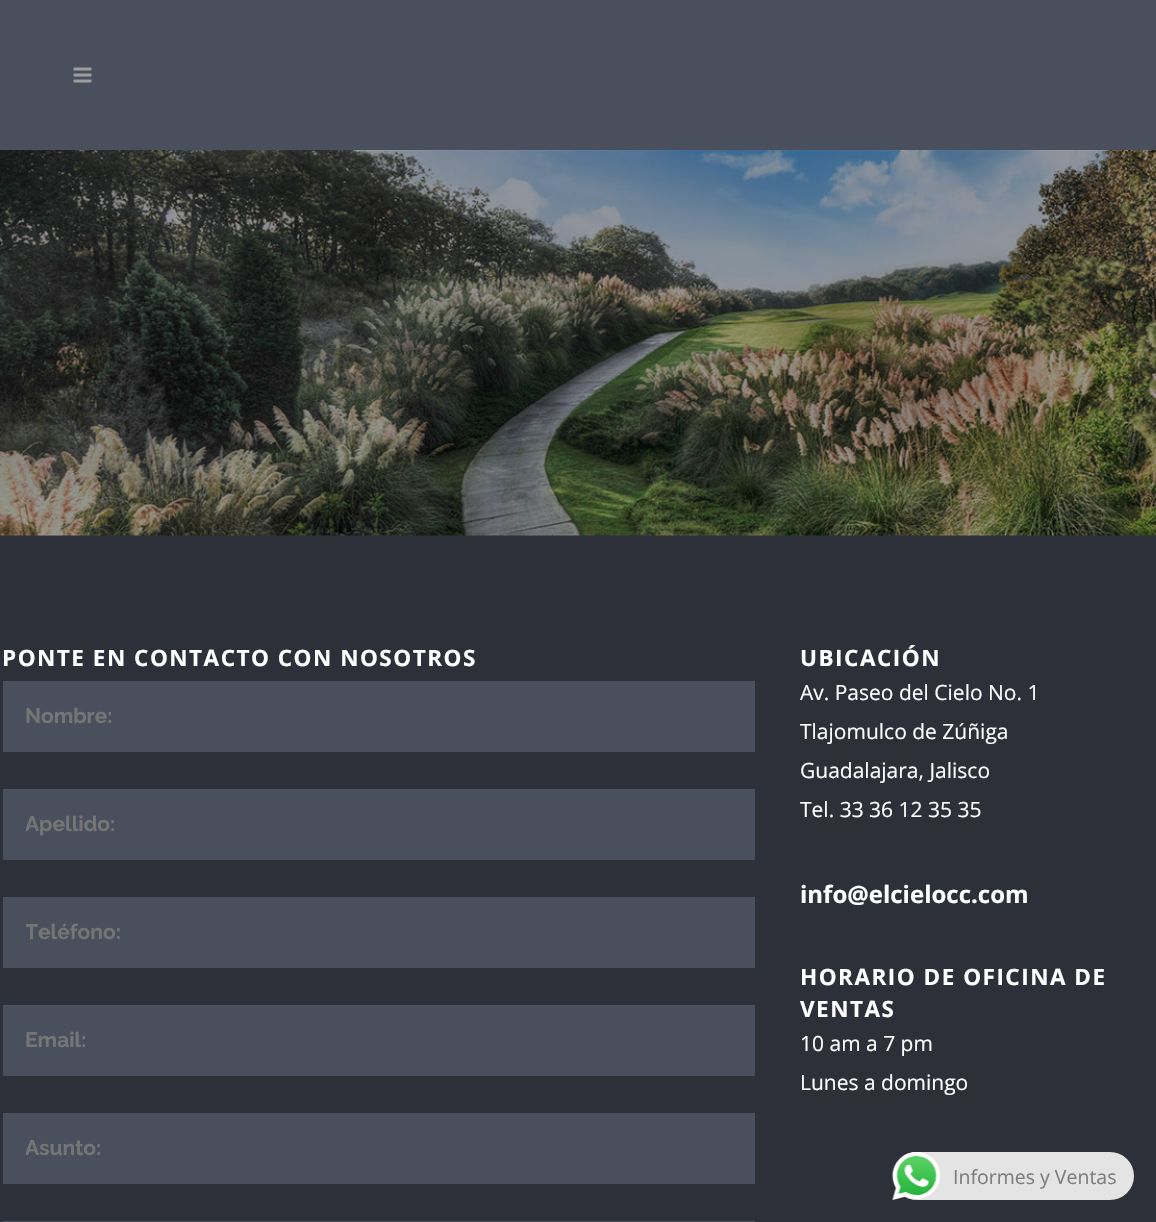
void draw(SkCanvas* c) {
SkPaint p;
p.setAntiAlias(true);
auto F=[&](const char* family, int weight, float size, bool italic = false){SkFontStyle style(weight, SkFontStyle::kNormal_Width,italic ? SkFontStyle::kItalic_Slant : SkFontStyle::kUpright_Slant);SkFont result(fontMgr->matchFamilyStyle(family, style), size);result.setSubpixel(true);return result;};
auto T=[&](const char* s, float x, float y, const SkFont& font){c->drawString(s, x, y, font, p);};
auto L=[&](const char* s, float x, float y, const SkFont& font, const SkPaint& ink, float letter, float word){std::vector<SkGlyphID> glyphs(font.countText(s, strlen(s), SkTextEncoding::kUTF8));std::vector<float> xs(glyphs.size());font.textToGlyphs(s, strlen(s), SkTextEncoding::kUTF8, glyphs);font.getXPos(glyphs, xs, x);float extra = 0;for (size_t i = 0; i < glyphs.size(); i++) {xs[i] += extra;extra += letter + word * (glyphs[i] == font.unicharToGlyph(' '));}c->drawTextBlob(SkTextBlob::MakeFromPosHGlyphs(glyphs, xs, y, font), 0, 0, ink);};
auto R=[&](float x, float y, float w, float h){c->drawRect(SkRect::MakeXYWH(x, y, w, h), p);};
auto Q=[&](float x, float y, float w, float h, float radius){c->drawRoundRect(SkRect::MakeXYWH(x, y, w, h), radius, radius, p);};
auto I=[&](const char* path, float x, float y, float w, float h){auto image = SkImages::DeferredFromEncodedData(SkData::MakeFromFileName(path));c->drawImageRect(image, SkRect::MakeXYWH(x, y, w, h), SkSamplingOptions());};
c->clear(0xff2d3039);
p.setColor(0xff4a4f5e);
R(0,0,1156,150);
I("1.png",73,67,19,16);
I("2.png",0,150,1156,386);
auto f1 = F("Open Sans",700,22.5);
p.setColor(0xffffffff);
L("PONTE EN CONTACTO CON NOSOTROS",2,666,f1,p,1.5,0);
p.setColor(0xff4a4f5e);
R(3,681,752,71);
auto f2 = F("Raleway",700,21);
p.setColor(0xff757575);
T("Nombre:",25,723,f2);
p.setColor(0xff4a4f5e);
R(3,789,752,71);
c->save();
c->clipRect(SkRect::MakeXYWH(26,812,706,24));
p.setColor(0xff757575);
T("Apellido:",25,831,f2);
c->restore();
p.setColor(0xff4a4f5e);
R(3,897,752,71);
c->save();
c->clipRect(SkRect::MakeXYWH(26,920,706,24));
p.setColor(0xff757575);
T("Teléfono:",25,939,f2);
c->restore();
p.setColor(0xff4a4f5e);
R(3,1005,752,71);
p.setColor(0xff757575);
T("Email:",25,1047,f2);
p.setColor(0xff4a4f5e);
R(3,1113,752,71);
c->save();
c->clipRect(SkRect::MakeXYWH(26,1136,706,24));
p.setColor(0xff757575);
T("Asunto:",25,1155,f2);
c->restore();
p.setColor(0xff4a4f5e);
R(3,1221,752,1);
p.setColor(0xffffffff);
L("UBICACIÓN",800,666,f1,p,1.5,0);
auto f3 = F("Open Sans",400,21);
T("Av. Paseo del Cielo No. 1",800,700,f3);
T("Tlajomulco de Zúñiga",800,739,f3);
T("Guadalajara, Jalisco",800,778,f3);
T("Tel. 33 36 12 35 35",800,817,f3);
auto f4 = F("Open Sans",700,24);
T("info@elcielocc.com",800,903,f4);
L("HORARIO DE OFICINA DE",800,985,f1,p,1.5,0);
L("VENTAS",800,1017,f1,p,1.5,0);
T("10 am a 7 pm",800,1051,f3);
T("Lunes a domingo",800,1090,f3);
p.setColor(0xffe4e4e4);
Q(893,1152,241,48,24);
I("3.png",892,1152,49,48);
auto f5 = F("Open Sans",400,19.5);
p.setColor(0xff7f7d7d);
T("Informes y Ventas",953,1184,f5);
}
